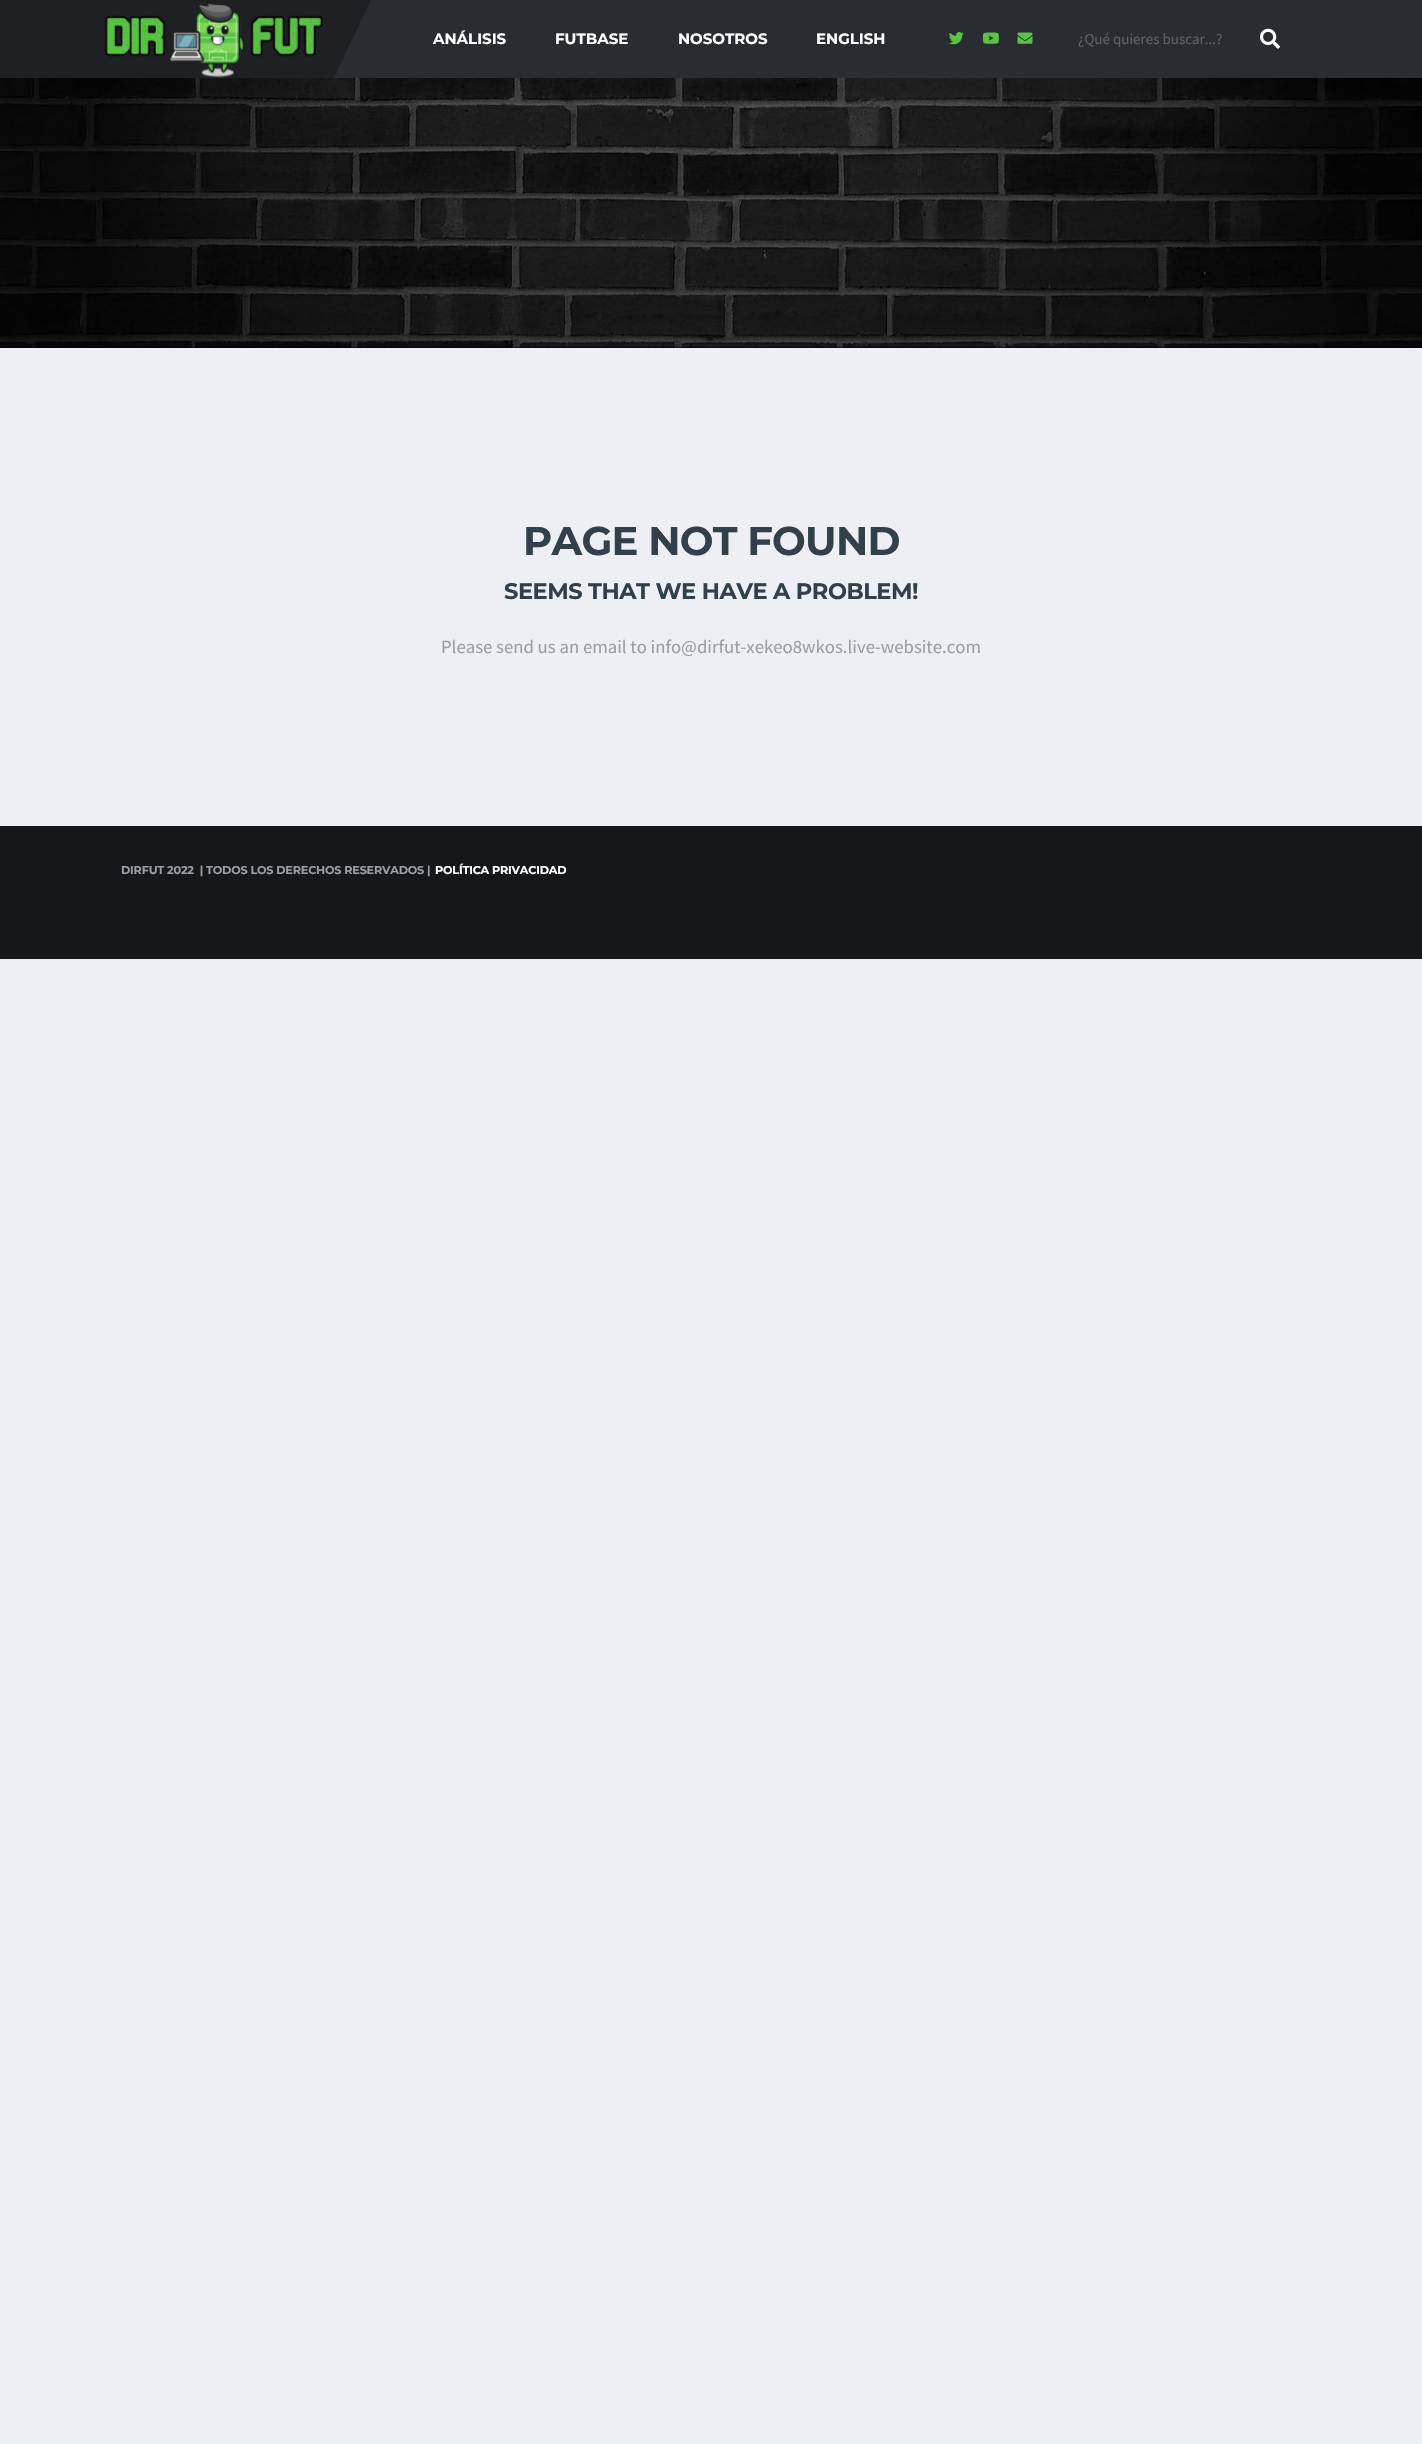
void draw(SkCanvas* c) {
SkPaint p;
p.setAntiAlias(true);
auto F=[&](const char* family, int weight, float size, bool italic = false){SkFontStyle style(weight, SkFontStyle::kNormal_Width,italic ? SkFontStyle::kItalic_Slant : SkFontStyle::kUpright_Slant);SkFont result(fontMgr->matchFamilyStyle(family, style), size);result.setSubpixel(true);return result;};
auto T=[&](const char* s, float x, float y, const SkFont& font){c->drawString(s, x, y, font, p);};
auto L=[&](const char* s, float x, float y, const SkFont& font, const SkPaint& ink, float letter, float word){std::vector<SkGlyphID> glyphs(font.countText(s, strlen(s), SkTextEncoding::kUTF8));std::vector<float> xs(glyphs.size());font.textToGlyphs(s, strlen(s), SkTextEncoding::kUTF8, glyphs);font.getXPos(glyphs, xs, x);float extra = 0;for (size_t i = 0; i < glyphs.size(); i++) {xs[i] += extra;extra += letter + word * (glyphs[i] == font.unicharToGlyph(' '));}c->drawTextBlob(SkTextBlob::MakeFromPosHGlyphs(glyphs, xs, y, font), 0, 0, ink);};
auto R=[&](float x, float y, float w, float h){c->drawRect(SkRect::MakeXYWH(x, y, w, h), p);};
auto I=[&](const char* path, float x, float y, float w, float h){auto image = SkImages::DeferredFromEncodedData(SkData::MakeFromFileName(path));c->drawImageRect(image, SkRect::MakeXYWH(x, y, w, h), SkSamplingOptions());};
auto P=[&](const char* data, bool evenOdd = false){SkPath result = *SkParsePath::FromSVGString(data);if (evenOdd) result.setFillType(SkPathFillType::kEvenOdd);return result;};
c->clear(0xffedeff4);
p.setColor(0xff1e2024);
R(0,0,108,78);
p.setColor(0xff292c31);
R(334,0,1088,78);
p.setColor(0xff1e2024);
c->drawPath(P("M108 0h263l-37 78h-262z"),p);
I("1.png",104,2,219,76);
auto f1 = F("Montserrat",700,15);
p.setColor(0xffffffff);
T("ANÁLISIS",433,44,f1);
T("FUTBASE",555,44,f1);
T("NOSOTROS",678,44,f1);
T("ENGLISH",816,44,f1);
I("2.png",949,32,15,13);
I("3.png",982,32,17,12);
I("4.png",1017,32,16,12);
auto f2 = F("Source Sans Pro",400,15);
p.setColor(0xff5f6165);
T("¿Qué quieres buscar...?",1078,44,f2);
I("5.png",1260,28,20,21);
p.setColor(0xff000000);
R(0,347,1422,1);
I("6.png",0,78,1422,270);
auto f3 = F("Montserrat",700,40);
p.setColor(0xff31404b);
L("PAGE NOT FOUND",523,555,f3,p,-.75,0);
auto f4 = F("Montserrat",700,22.5);
L("SEEMS THAT WE HAVE A PROBLEM!",504,599,f4,p,-.45,0);
auto f5 = F("Source Sans Pro",400,18.75);
p.setColor(0xff9a9da2);
T("Please send us an email to info@dirfut-xekeo8wkos.live-website.com",441,653,f5);
p.setColor(0xff16171a);
R(0,826,1422,133);
auto f6 = F("Montserrat",700,11.25);
p.setColor(0xff9a9da2);
L("DIRFUT 2022  | TODOS LOS DERECHOS RESERVADOS |",121,874,f6,p,-.2,0);
p.setColor(0xffffffff);
L("POLÍTICA PRIVACIDAD",435,874,f6,p,-.2,0);
}
